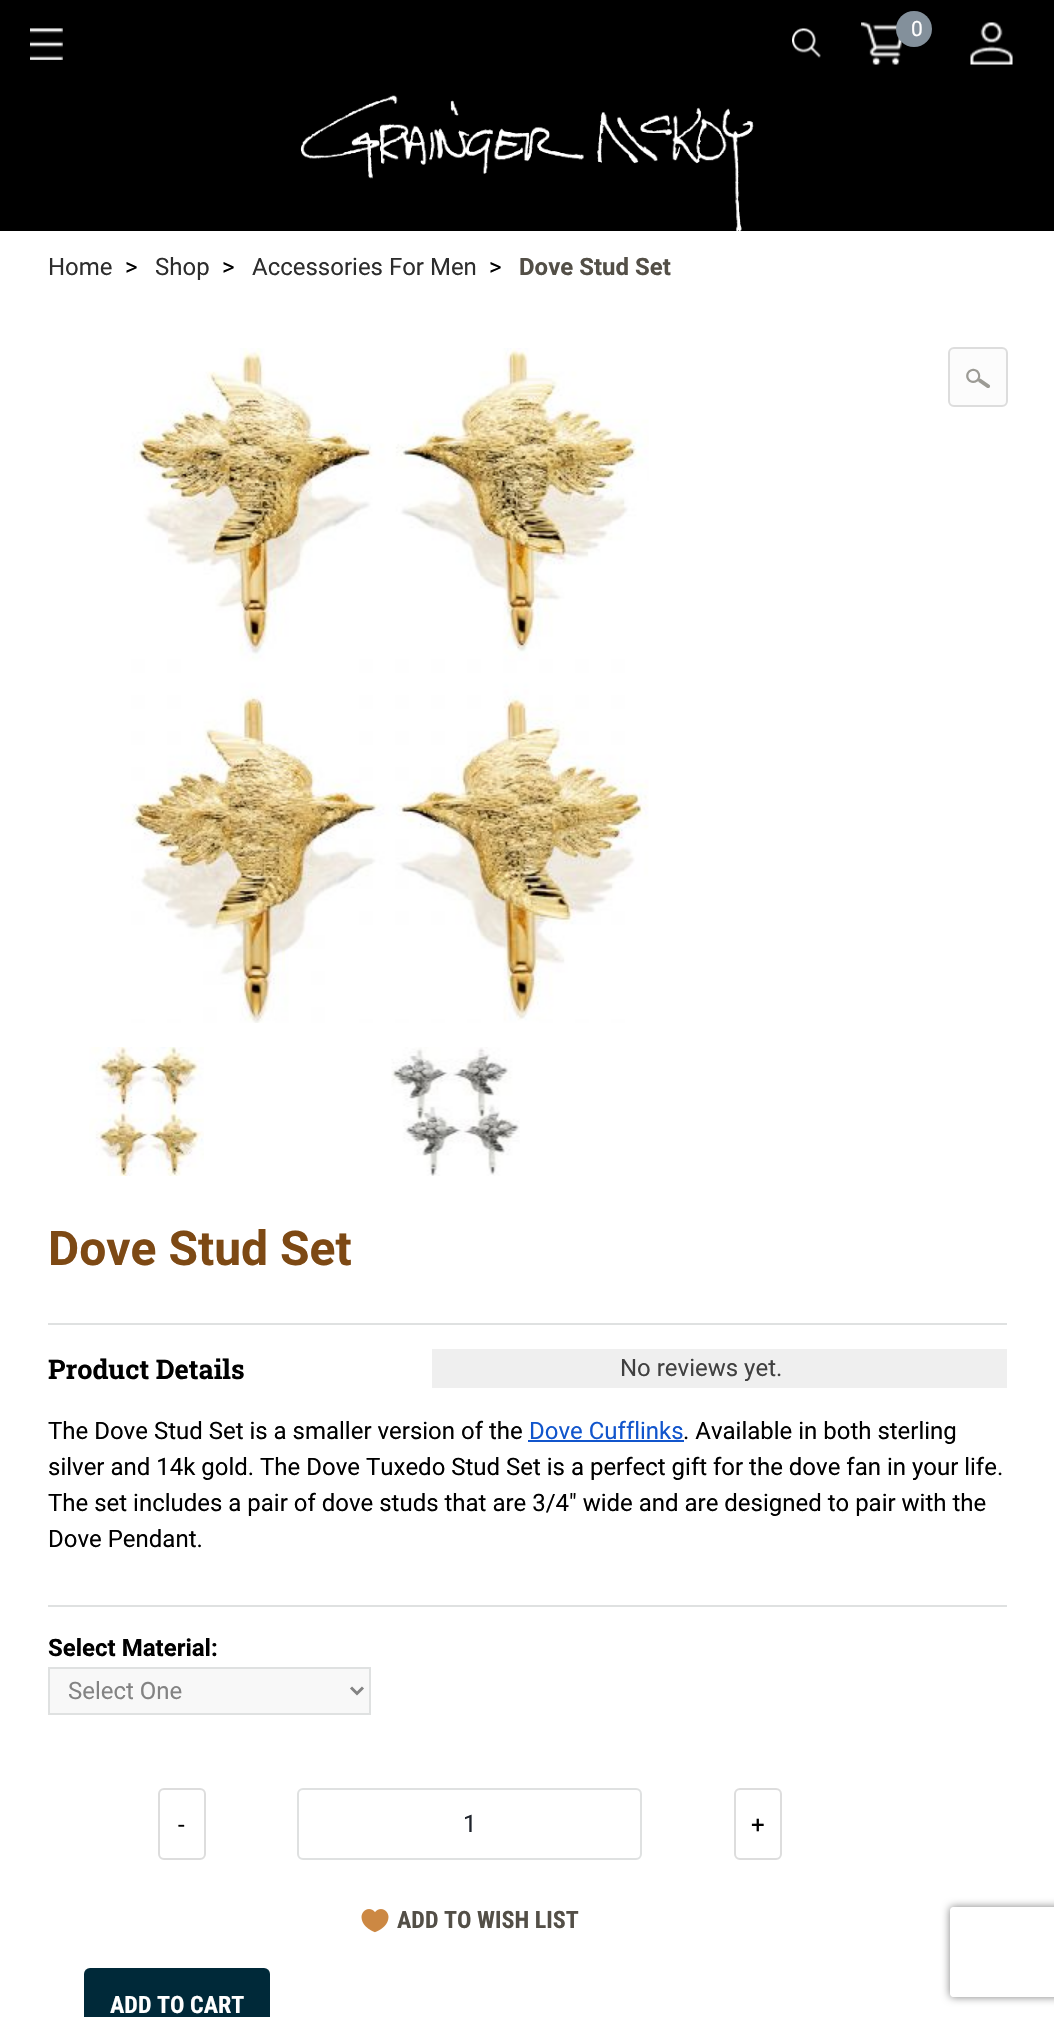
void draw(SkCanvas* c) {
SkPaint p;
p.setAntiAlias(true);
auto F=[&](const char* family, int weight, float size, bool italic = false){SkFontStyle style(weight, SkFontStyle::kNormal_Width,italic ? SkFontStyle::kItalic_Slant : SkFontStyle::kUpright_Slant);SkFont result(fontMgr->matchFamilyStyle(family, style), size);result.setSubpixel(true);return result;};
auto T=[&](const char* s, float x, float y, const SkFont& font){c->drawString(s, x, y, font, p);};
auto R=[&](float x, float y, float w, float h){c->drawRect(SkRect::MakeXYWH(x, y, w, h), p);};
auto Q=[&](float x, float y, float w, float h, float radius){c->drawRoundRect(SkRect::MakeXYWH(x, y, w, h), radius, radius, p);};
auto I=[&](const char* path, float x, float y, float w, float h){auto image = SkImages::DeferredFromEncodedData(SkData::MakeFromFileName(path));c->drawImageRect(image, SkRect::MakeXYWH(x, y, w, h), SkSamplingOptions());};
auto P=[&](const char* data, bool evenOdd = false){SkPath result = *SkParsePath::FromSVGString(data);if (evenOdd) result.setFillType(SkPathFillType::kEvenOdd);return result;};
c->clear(0xffffffff);
p.setColor(0xff000000);
R(0,0,1054,231);
I("1.png",30,28,33,32);
I("2.png",792,28,29,30);
I("3.png",861,22,41,43);
p.setColor(0xff83909b);
c->drawCircle(914,29,18,p);
auto f1 = F("Roboto",400,21);
p.setColor(0xffffffff);
T("0",911,36,f1);
I("4.png",970,22,43,43);
I("5.png",300,95,454,136);
auto f2 = F("Roboto",400,24);
p.setColor(0xff2d2d2d);
T("Home",48,275,f2);
p.setColor(0xff000000);
T(">",125,275,f2);
p.setColor(0xff2d2d2d);
T("Shop",155,275,f2);
p.setColor(0xff000000);
T(">",222,275,f2);
p.setColor(0xff2d2d2d);
T("Accessories For Men",252,275,f2);
p.setColor(0xff000000);
T(">",489,275,f2);
auto f3 = F("Roboto",700,24);
p.setColor(0xff534f47);
T("Dove Stud Set",519,275,f3);
I("6.png",120,348,529,675);
p.setColor(0xfffcfcfc);
c->drawRoundRect(SkRect::MakeXYWH(949,348,58,58),5,5,p);
p.setStroke(true);
p.setStrokeWidth(2);
p.setColor(0xffdddddd);
c->drawRoundRect(SkRect::MakeXYWH(949,348,58,58),5,5,p);
auto f4 = F("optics",400,24);
p.setStroke(false);
p.setColor(0xff9c9b95);
T("1",966,389,f4);
I("7.png",89,1047,115,129);
I("8.png",391,1047,129,129);
auto f5 = F("Roboto",700,48);
p.setColor(0xff7d4914);
T("Dove Stud Set",48,1265,f5);
p.setColor(0xffdfe1e1);
R(48,1323,959,2);
auto f6 = F("Roboto Slab",700,27);
p.setColor(0xff000000);
T("Product Details",48,1379,f6);
p.setColor(0xffefefef);
R(432,1349,575,39);
p.setColor(0xff404040);
T("No reviews yet.",620,1376,f2);
p.setColor(0xff000000);
T("The Dove Stud Set is a smaller version of the",48,1439,f2);
p.setColor(0xff1155cc);
T("Dove Cufflinks",529,1439,f2);
R(528,1440,156,2);
p.setColor(0xff000000);
T(". Available in both sterling",683,1439,f2);
T("silver and 14k gold. The Dove Tuxedo Stud Set is a perfect gift for the dove fan in your life.",48,1475,f2);
T("The set includes a pair of dove studs that are 3/4\" wide and are designed to pair with the",48,1511,f2);
T("Dove Pendant.",48,1547,f2);
p.setColor(0xffdfe1e1);
R(48,1605,959,2);
p.setColor(0xff000000);
T("Select Material:",48,1656,f3);
p.setColor(0xfff8f8f8);
c->drawRect(SkRect::MakeXYWH(49,1668,321,46),p);
p.setStroke(true);
p.setColor(0xffdfe1e1);
c->drawRect(SkRect::MakeXYWH(49,1668,321,46),p);
p.setStrokeWidth(3);
p.setColor(0xff838383);
c->drawPath(P("M351 1687.5l6 6l6-6"),p);
p.setStroke(false);
T("Select One",68,1699,f2);
p.setStroke(true);
p.setStrokeWidth(2);
p.setColor(0xffdddddd);
c->drawRoundRect(SkRect::MakeXYWH(159,1789,46,70),5,5,p);
p.setStroke(false);
p.setColor(0xff000000);
T("-",178,1833,f2);
p.setStroke(true);
p.setColor(0xffdfe1e1);
c->drawRoundRect(SkRect::MakeXYWH(298,1789,343,70),5,5,p);
p.setStroke(false);
p.setColor(0xff1f242c);
T("1",463,1832,f2);
p.setStroke(true);
p.setColor(0xffdddddd);
c->drawRoundRect(SkRect::MakeXYWH(735,1789,46,70),5,5,p);
p.setStroke(false);
p.setColor(0xff000000);
T("+",751,1833,f2);
I("9.png",361,1909,28,24);
auto f7 = F("Roboto Condensed",700,24);
p.setColor(0xff534f47);
T("ADD TO WISH LIST",397,1928,f7);
p.setColor(0xff002939);
Q(84,1968,186,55,6);
p.setColor(0xffffffff);
T("ADD TO CART",110,2013,f7);
c->save();
c->clipPath(P("M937 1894h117v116h-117zm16 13h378c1.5 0 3 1.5 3 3v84c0 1.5-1.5 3-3 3h-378c-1.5 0-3-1.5-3-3v-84c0-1.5 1.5-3 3-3z",true),true);
p.setColor(0xff808080);
p.setMaskFilter(SkMaskFilter::MakeBlur(kNormal_SkBlurStyle, 4));
c->drawRoundRect(SkRect::MakeXYWH(950,1907,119,90),3,3,p);
p.setMaskFilter(nullptr);
c->restore();
}
